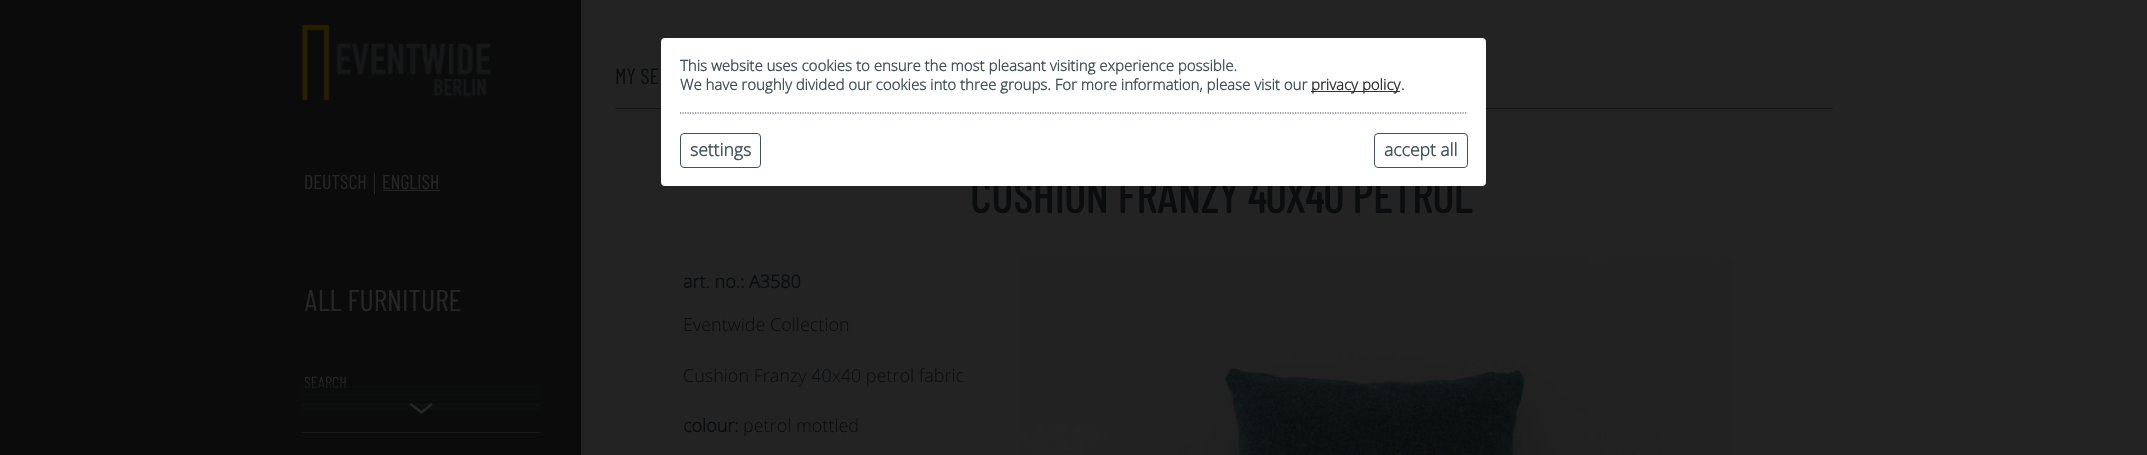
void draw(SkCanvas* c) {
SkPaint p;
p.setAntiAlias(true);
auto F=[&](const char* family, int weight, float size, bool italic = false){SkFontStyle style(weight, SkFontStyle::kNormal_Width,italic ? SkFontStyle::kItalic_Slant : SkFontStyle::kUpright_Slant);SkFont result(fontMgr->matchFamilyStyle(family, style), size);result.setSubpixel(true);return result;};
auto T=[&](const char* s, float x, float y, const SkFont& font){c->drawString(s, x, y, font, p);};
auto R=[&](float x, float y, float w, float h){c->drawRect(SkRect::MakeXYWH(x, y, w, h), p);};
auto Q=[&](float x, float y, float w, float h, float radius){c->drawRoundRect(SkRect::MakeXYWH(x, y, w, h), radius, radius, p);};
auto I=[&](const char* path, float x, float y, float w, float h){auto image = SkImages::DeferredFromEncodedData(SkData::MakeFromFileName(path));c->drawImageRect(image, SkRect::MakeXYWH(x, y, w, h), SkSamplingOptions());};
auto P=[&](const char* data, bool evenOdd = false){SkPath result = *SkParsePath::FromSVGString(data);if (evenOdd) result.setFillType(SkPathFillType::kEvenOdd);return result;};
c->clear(0xff232323);
p.setColor(0xff131314);
R(615,108,1218,1);
auto f1 = F("Barlow Condensed",700,46.25);
p.setColor(0xff0a0c0e);
T("CUSHION FRANZY 40X40 PETROL",970,213,f1);
p.setColor(0xffffffff);
Q(661,38,825,148,4);
auto f2 = F("Open Sans",700,15);
p.setColor(0xff43525a);
T("This website uses cookies to ensure the most pleasant visiting experience possible.",680,71,f2);
T("We have roughly divided our cookies into three groups. For more information, please visit our",680,90,f2);
p.setColor(0xff333333);
R(1311,91,89,1);
T("privacy policy",1311,90,f2);
p.setColor(0xff43525a);
T(".",1401,90,f2);
p.setStroke(true);
p.setStrokeWidth(1.2);
p.setPathEffect(SkDashPathEffect::Make({{1.25f,1.25f}}, 0));
c->drawPath(P("M680 113h787.5"),p);
p.setPathEffect(nullptr);
p.setStrokeWidth(1);
c->drawRoundRect(SkRect::MakeXYWH(680.5,133.5,80,34),3.5,3.5,p);
auto f3 = F("Open Sans",700,17.5);
p.setStroke(false);
T("settings",690,156,f3);
p.setStroke(true);
c->drawRoundRect(SkRect::MakeXYWH(1374.5,133.5,93,34),3.5,3.5,p);
p.setStroke(false);
T("accept all",1384,156,f3);
p.setColor(0xff0b0b0b);
R(0,0,581,455);
I("1.png",302,24,189,77);
auto f4 = F("Barlow Condensed",400,20);
p.setColor(0xff262626);
T("DEUTSCH",304,189,f4);
auto f5 = F("Open Sans",300,20);
T("|",369,189,f5);
T("ENGLISH",382,189,f4);
R(383,190,57,1);
auto f6 = F("Barlow Condensed",400,30);
T("ALL FURNITURE",304,311,f6);
auto f7 = F("Barlow Condensed",400,16);
T("SEARCH",304,388,f7);
R(302,404,238,29);
c->save();
c->clipRect(SkRect::MakeXYWH(286,118,270,315));
p.setStroke(true);
p.setColor(0xff171717);
c->drawRect(SkRect::MakeXYWH(301.5,403.5,239,39),p);
c->restore();
I("2.png",301,382,240,51);
p.setStrokeWidth(2.5);
p.setColor(0xff262626);
c->drawPath(P("M410.5 404l11 8.5l10.5-8.5"),p);
auto f8 = F("Barlow Condensed",400,22);
p.setStroke(false);
p.setColor(0xff0a0c0e);
T("MY SE",615,84,f8);
auto f9 = F("Open Sans",700,18);
T("art. no.: A3580",683,288,f9);
I("3.png",1019,253,716,202);
auto f10 = F("Open Sans",300,18);
T("Eventwide Collection",683,331,f10);
T("Cushion Franzy 40x40 petrol fabric",683,382,f10);
T("colour:",683,432,f9);
T("petrol mottled",743,432,f10);
}
